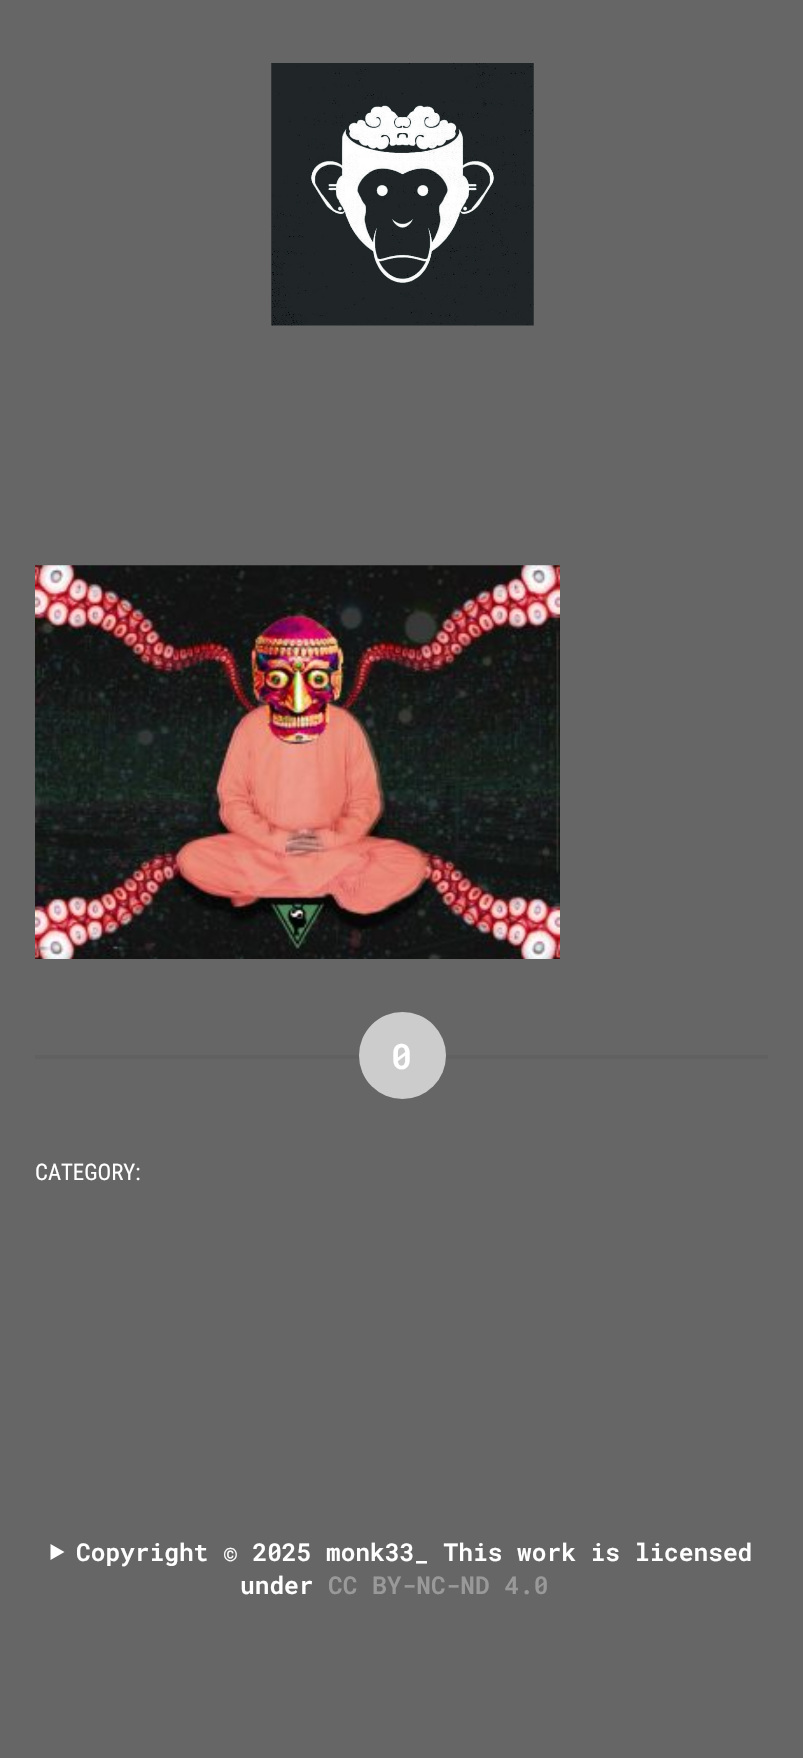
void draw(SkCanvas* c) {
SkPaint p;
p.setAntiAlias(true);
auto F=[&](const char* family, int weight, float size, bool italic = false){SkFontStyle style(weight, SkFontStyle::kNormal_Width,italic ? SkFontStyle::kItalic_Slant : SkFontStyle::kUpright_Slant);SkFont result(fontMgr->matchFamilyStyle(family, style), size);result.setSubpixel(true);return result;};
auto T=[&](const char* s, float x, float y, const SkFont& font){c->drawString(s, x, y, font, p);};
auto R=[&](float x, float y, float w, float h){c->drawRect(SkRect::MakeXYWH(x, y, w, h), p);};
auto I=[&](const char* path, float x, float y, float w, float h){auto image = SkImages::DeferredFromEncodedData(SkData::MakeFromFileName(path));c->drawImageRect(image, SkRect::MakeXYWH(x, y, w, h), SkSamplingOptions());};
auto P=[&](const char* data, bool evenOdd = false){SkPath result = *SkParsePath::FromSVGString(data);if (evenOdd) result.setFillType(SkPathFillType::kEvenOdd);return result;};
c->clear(0xff666666);
I("1.png",271,63,263,263);
I("2.png",35,565,525,394);
p.setColor(0xff616161);
R(35,1055,733,4);
p.setColor(0xffcccccc);
c->drawCircle(402.5,1055.5,43.5,p);
auto f1 = F("Roboto Mono",600,35);
p.setColor(0xffffffff);
T("0",391,1069,f1);
auto f2 = F("Roboto Condensed",400,22.75);
T("CATEGORY:",35,1180,f2);
c->drawPath(P("M50.5 1544l14 8l-14 8z"),p);
auto f3 = F("Roboto Mono",600,24.5);
T("Copyright © 2025 monk33_ This work is licensed",76,1561,f3);
T("under",240,1594,f3);
p.setColor(0xff999999);
T("CC BY-NC-ND 4.0",328,1594,f3);
}
